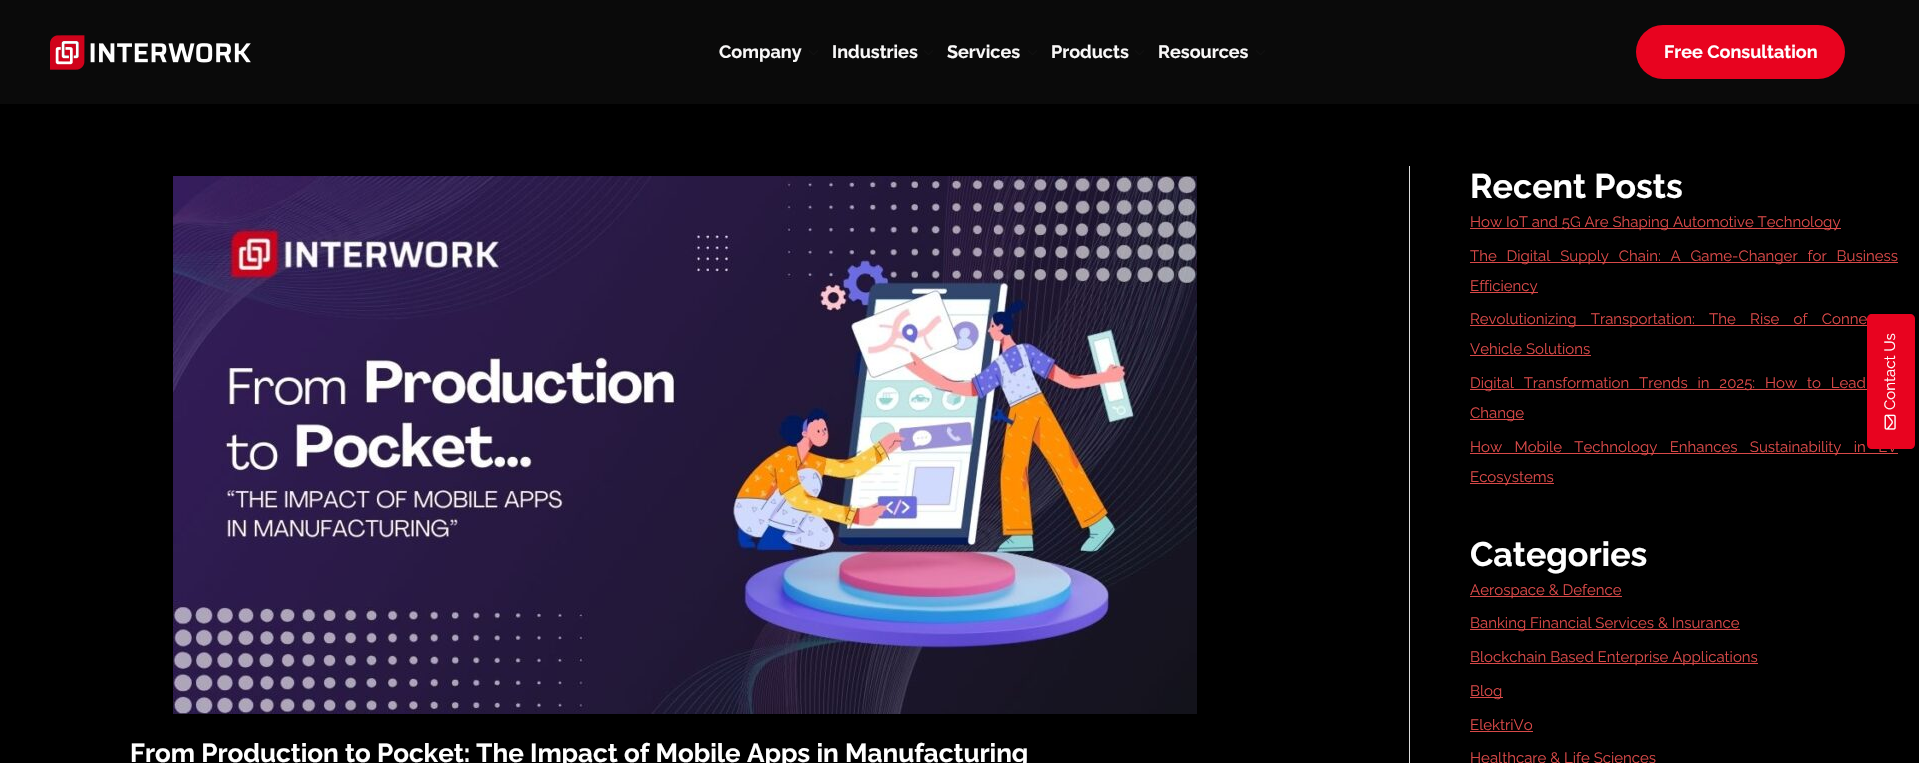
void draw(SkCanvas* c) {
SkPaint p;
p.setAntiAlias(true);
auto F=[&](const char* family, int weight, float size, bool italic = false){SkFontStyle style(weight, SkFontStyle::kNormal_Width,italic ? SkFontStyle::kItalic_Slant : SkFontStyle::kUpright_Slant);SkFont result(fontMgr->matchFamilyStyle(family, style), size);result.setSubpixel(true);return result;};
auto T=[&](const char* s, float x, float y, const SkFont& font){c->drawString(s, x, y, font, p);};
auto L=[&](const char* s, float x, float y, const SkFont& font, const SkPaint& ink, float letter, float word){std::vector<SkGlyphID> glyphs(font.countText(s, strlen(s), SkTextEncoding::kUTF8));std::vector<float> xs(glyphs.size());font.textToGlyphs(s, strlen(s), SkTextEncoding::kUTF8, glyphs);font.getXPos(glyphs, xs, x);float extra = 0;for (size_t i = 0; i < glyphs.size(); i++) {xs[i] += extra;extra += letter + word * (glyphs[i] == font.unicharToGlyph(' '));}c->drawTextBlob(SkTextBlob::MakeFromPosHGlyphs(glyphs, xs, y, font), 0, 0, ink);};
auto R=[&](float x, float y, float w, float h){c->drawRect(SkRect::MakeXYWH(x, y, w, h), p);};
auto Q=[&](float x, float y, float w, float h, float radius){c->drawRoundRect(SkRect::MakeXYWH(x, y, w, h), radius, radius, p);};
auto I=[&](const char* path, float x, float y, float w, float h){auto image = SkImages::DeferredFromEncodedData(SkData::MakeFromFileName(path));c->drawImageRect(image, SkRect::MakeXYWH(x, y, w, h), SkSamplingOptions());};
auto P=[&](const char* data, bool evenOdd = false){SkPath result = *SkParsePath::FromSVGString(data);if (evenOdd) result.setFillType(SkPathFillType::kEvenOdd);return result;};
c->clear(0xff000000);
p.setColor(0xff0a0a0a);
R(0,0,1919,104);
I("1.png",50,35,201,35);
auto f1 = F("Raleway",700,18);
p.setColor(0xfff9f8f8);
T("Company",719,58,f1);
I("2.png",809,50,9,5);
T("Industries",832,58,f1);
I("2.png",924,50,9,5);
T("Services",947,58,f1);
I("2.png",1028,50,9,5);
T("Products",1051,58,f1);
I("2.png",1135,50,9,5);
T("Resources",1158,58,f1);
I("2.png",1256,50,9,5);
p.setColor(0xffe8031f);
Q(1636,25,209,54,27);
p.setColor(0xffffffff);
T("Free Consultation",1664,58,f1);
p.setColor(0xffdddddd);
R(1409,166,1,597);
I("3.png",173,176,1024,538);
auto f2 = F("Raleway",700,26);
p.setColor(0xffffffff);
T("From Production to Pocket: The Impact of Mobile Apps in Manufacturing",130,762,f2);
auto f3 = F("Raleway",700,34);
T("Recent Posts",1470,198,f3);
p.setColor(0xffd94948);
R(1470,228,371,1);
auto f4 = F("Raleway",400,15);
T("How IoT and 5G Are Shaping Automotive Technology",1470,227,f4);
R(1470,262,428,1);
L("The Digital Supply Chain: A Game-Changer for Business",1470,261,f4,p,0,6);
R(1470,292,68,1);
T("Efficiency",1470,291,f4);
R(1470,325,397,1);
L("Revolutionizing Transportation: The Rise of Conne",1470,324,f4,p,0,10.5);
T("Vehicle Solutions",1470,354,f4);
R(1470,355,121,1);
R(1470,389,397,1);
L("Digital Transformation Trends in 2025: How to Lead",1470,388,f4,p,0,6);
R(1470,419,54,1);
T("Change",1470,418,f4);
R(1470,453,428,1);
L("How Mobile Technology Enhances Sustainability in EV",1470,452,f4,p,0,8.5);
R(1470,483,84,1);
T("Ecosystems",1470,482,f4);
p.setColor(0xffffffff);
T("Categories",1470,566,f3);
p.setColor(0xffd94948);
R(1470,596,152,1);
T("Aerospace & Defence",1470,595,f4);
R(1470,629,270,1);
T("Banking Financial Services & Insurance",1470,628,f4);
R(1470,663,288,1);
T("Blockchain Based Enterprise Applications",1470,662,f4);
R(1470,697,33,1);
T("Blog",1470,696,f4);
T("ElektriVo",1470,730,f4);
R(1470,731,63,1);
T("Healthcare & Life Sciences",1470,763,f4);
p.setColor(0xffe8031f);
c->drawPath(P("M1867 444v-125c0-3 2-5 5-5h38c3 0 5 2 5 5v125c0 3-2 5-5 5h-38c-3 0-5-2-5-5z"),p);
p.setColor(0xffffffff);
c->save();
c->rotate(-90,1895,410);
T("Contact Us",1895,410,f4);
c->restore();
I("4.png",1884,414,12,16);
}
